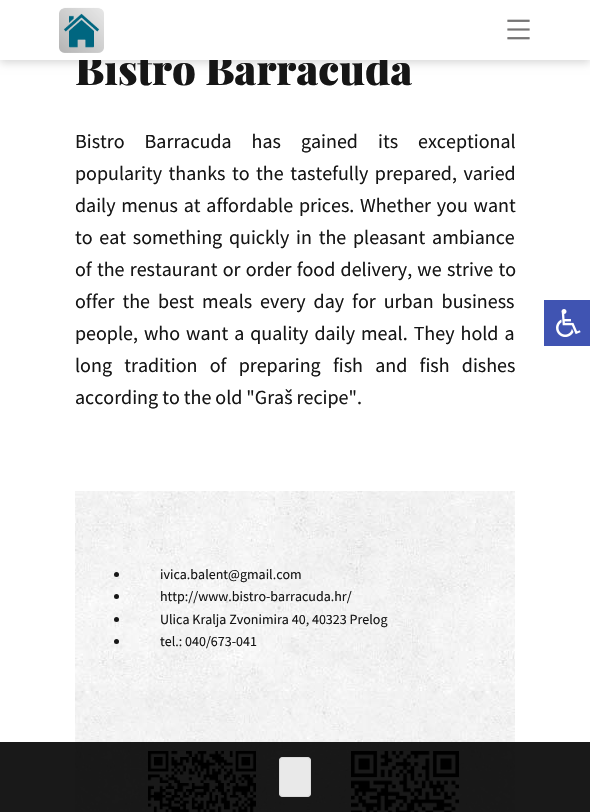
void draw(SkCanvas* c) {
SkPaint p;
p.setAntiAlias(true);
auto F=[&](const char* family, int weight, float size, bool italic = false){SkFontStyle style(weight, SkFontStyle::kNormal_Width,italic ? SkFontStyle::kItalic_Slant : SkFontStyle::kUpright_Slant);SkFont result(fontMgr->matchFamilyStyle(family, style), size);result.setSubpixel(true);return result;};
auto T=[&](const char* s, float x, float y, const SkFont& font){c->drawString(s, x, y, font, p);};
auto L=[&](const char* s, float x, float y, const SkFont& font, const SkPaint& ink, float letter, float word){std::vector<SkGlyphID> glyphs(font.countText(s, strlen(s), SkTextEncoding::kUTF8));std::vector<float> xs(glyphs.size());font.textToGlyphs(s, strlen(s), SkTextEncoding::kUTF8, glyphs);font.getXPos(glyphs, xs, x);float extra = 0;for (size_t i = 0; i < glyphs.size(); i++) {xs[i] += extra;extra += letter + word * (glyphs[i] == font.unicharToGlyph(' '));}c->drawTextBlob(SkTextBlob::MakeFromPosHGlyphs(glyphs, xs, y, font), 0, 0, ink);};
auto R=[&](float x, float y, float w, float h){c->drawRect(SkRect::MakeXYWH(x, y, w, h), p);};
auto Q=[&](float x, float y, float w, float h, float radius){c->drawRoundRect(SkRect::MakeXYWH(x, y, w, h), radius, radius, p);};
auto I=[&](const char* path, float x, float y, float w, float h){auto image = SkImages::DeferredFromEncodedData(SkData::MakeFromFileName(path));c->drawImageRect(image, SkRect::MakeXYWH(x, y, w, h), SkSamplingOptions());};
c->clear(0xffffffff);
p.setColor(0x26000000);
p.setMaskFilter(SkMaskFilter::MakeBlur(kNormal_SkBlurStyle, 4));
c->drawRect(SkRect::MakeXYWH(0,3,590,60),p);
p.setMaskFilter(nullptr);
auto f1 = F("Playfair Display",900,41.5);
p.setColor(0xff161616);
T("Bistro Barracuda",75,85,f1);
p.setColor(0xffffffff);
R(0,0,590,60);
I("1.png",59,7,45,46);
I("2.png",507,19,23,21);
auto f2 = F("Source Sans Pro",400,20);
p.setColor(0xff161616);
L("Bistro Barracuda has gained its exceptional",75,148,f2,p,0,16);
L("popularity thanks to the tastefully prepared, varied",75,180,f2,p,0,2.5);
L("daily menus at affordable prices. Whether you want",75,212,f2,p,0,1.75);
L("to eat something quickly in the pleasant ambiance",75,244,f2,p,0,2.75);
L("of the restaurant or order food delivery, we strive to",75,276,f2,p,0,1.25);
L("offer the best meals every day for urban business",75,308,f2,p,0,4);
L("people, who want a quality daily meal. They hold a",75,340,f2,p,0,2);
L("long tradition of preparing fish and fish dishes",75,372,f2,p,0,8.25);
T("according to the old \"Graš recipe\".",75,404,f2);
I("3.png",75,491,440,321);
c->drawCircle(116.5,574.5,2.5,p);
auto f3 = F("Source Sans Pro",400,14);
T("ivica.balent@gmail.com",160,579,f3);
c->drawCircle(116.5,596.5,2.5,p);
T("http://www.bistro-barracuda.hr/",160,601,f3);
c->drawCircle(116.5,619.5,2.5,p);
T("Ulica Kralja Zvonimira 40, 40323 Prelog",160,624,f3);
c->drawCircle(116.5,641.5,2.5,p);
T("tel.: 040/673-041",160,646,f3);
I("4.png",148,751,108,61);
I("5.png",351,751,108,61);
p.setColor(0xff4054b2);
R(544,300,46,46);
I("6.png",556,309,25,28);
p.setColor(0xe6000000);
R(0,742,590,70);
p.setColor(0xe6ffffff);
Q(279,757,32,40,4);
p.setStroke(true);
p.setStrokeWidth(1);
p.setColor(0xe6d9d9d9);
c->drawRoundRect(SkRect::MakeXYWH(279.5,757.5,31,39),3.5,3.5,p);
}
